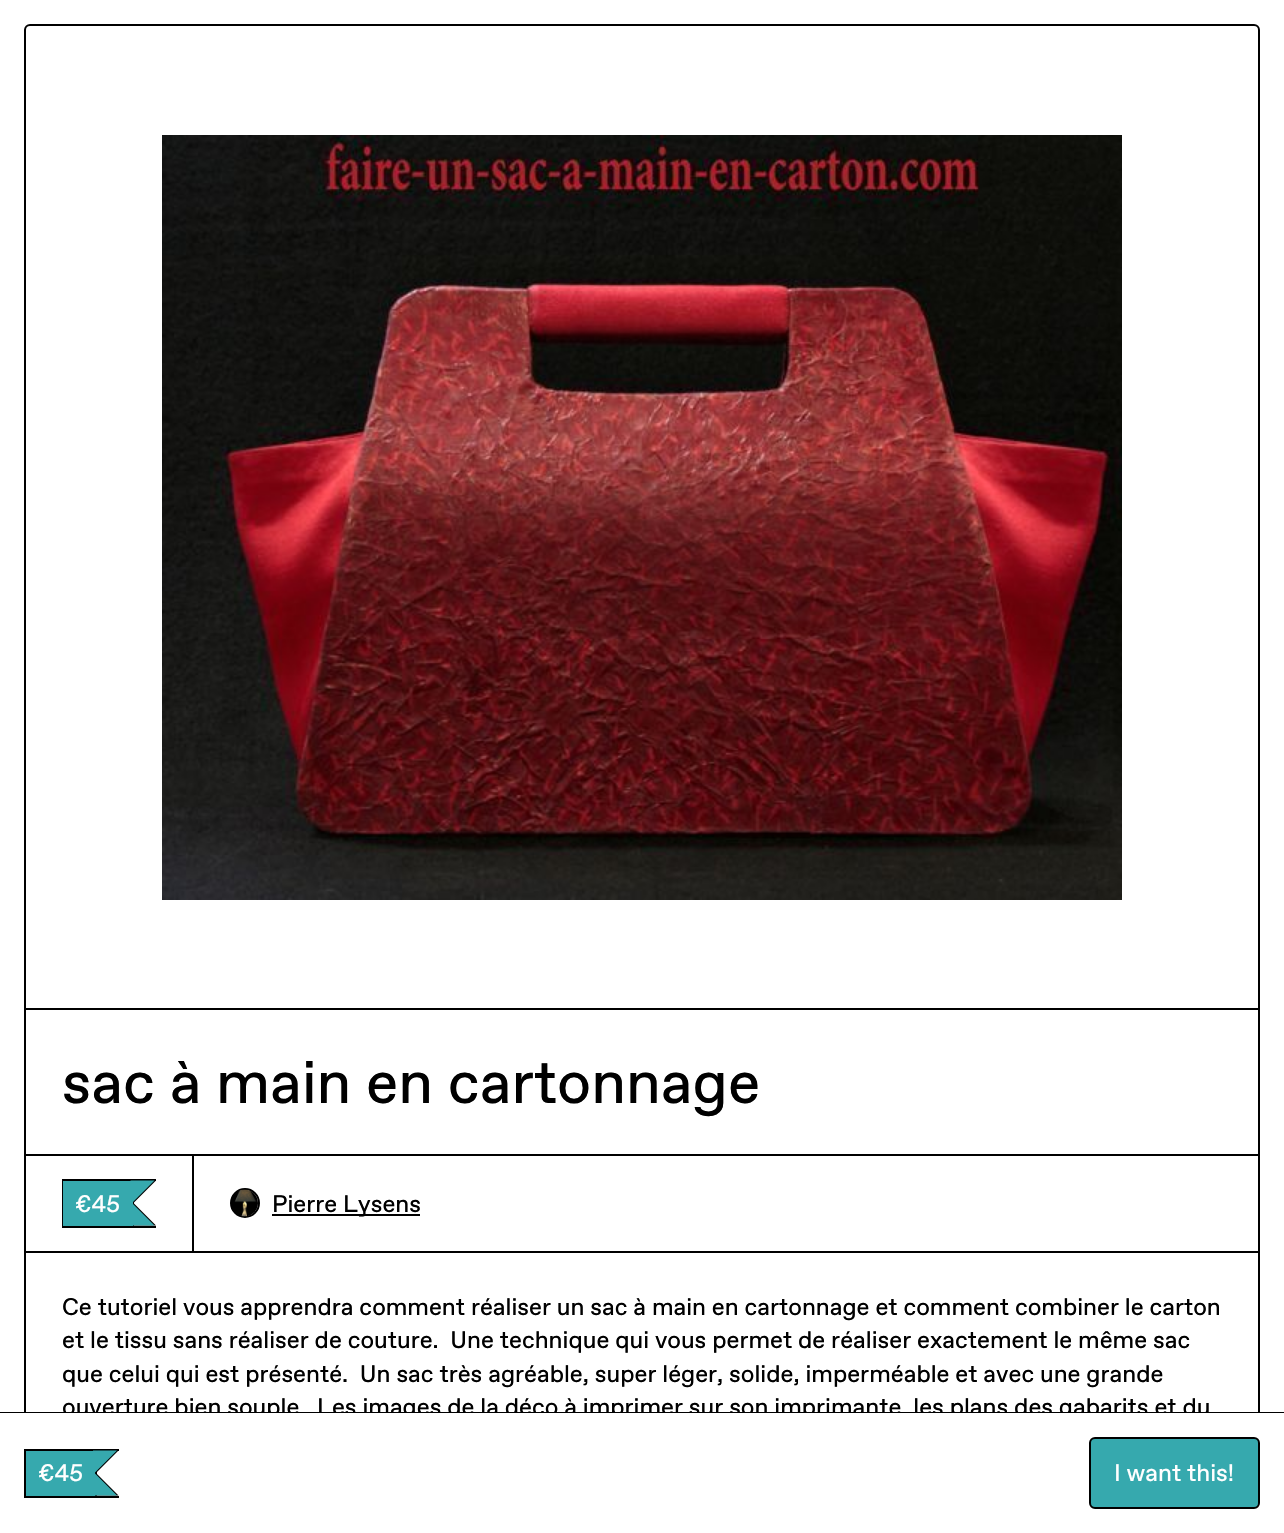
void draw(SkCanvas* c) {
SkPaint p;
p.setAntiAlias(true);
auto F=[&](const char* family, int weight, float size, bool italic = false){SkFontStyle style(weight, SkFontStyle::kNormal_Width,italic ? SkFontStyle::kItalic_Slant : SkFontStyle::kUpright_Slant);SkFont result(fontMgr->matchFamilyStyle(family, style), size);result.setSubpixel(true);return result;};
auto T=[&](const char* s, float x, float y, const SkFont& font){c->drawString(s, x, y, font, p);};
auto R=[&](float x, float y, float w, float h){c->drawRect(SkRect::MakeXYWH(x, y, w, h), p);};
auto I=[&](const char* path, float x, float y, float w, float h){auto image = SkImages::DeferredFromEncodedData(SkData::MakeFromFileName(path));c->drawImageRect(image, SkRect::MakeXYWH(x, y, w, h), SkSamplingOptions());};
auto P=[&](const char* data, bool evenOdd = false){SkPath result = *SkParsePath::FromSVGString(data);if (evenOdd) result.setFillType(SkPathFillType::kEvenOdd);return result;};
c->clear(0xffffffff);
p.setStroke(true);
p.setStrokeWidth(2);
p.setColor(0xff000000);
c->drawRoundRect(SkRect::MakeXYWH(25,25,1234,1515),5,5,p);
p.setStroke(false);
R(26,1008,1233,2);
I("1.png",162,135,960,765);
auto f1 = F("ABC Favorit",400,60);
T("sac à main en cartonnage",62,1103,f1);
R(194,1154,1065,2);
p.setStroke(true);
c->drawRect(SkRect::MakeXYWH(25,1155,168,97),p);
p.setStroke(false);
R(62,1179,94,2);
R(62,1226,94,2);
R(62,1179,2,48);
p.setColor(0xff36a9ae);
R(63,1181,68,45);
p.setColor(0xff000000);
c->drawPath(P("M132 1180.5h24l-22.5 22.5zm24 45h-24l1.5-22.5z"),p);
R(133,1201,1,25);
p.setColor(0xff36a9ae);
c->drawPath(P("M130.5 1180.5h24l-22.5 22.5zm24 45h-24l1.5-22.5z"),p);
R(131,1181,2,45);
auto f2 = F("ABC Favorit",400,24);
p.setColor(0xffffffff);
T("€45",75,1212,f2);
p.setStroke(true);
p.setColor(0xff000000);
c->drawCircle(245,1203,14,p);
I("2.png",232,1189,26,28);
p.setStroke(false);
R(272,1214,148,2);
T("Pierre Lysens",272,1212,f2);
R(194,1251,1065,2);
T("Ce tutoriel vous apprendra comment réaliser un sac à main en cartonnage et comment combiner le carton",62,1315,f2);
T("et le tissu sans réaliser de couture.  Une technique qui vous permet de réaliser exactement le même sac",62,1348,f2);
T("que celui qui est présenté.  Un sac très agréable, super léger, solide, imperméable et avec une grande",62,1382,f2);
T("ouverture bien souple.  Les images de la déco à imprimer sur son imprimante, les plans des gabarits et du",62,1415,f2);
R(0,1412,1284,1);
p.setColor(0xffffffff);
R(24,1413,1236,120);
p.setColor(0xff000000);
R(24,1449,95,2);
R(24,1496,95,2);
R(24,1449,2,48);
c->drawPath(P("M94.5 1450.5h24l-22.5 22.5zm24 45h-24l1.5-22.5z"),p);
R(95,1470,2,26);
p.setColor(0xff36a9ae);
c->drawPath(P("M93 1450.5h24l-22.5 22.5zm24 45h-24l1.5-22.5z"),p);
R(93,1451,2,45);
R(26,1451,67,45);
p.setColor(0xffffffff);
T("€45",38,1481,f2);
p.setColor(0xff36a9ae);
c->drawRoundRect(SkRect::MakeXYWH(1090,1438,169,70),5,5,p);
p.setStroke(true);
p.setColor(0xff000000);
c->drawRoundRect(SkRect::MakeXYWH(1090,1438,169,70),5,5,p);
p.setStroke(false);
p.setColor(0xffffffff);
T("I want this!",1114,1481,f2);
}
